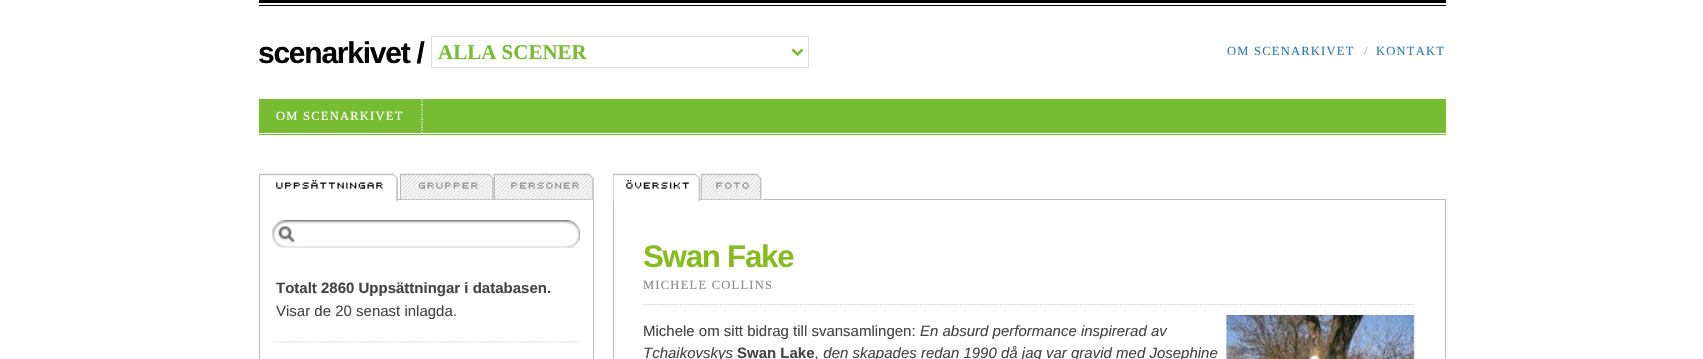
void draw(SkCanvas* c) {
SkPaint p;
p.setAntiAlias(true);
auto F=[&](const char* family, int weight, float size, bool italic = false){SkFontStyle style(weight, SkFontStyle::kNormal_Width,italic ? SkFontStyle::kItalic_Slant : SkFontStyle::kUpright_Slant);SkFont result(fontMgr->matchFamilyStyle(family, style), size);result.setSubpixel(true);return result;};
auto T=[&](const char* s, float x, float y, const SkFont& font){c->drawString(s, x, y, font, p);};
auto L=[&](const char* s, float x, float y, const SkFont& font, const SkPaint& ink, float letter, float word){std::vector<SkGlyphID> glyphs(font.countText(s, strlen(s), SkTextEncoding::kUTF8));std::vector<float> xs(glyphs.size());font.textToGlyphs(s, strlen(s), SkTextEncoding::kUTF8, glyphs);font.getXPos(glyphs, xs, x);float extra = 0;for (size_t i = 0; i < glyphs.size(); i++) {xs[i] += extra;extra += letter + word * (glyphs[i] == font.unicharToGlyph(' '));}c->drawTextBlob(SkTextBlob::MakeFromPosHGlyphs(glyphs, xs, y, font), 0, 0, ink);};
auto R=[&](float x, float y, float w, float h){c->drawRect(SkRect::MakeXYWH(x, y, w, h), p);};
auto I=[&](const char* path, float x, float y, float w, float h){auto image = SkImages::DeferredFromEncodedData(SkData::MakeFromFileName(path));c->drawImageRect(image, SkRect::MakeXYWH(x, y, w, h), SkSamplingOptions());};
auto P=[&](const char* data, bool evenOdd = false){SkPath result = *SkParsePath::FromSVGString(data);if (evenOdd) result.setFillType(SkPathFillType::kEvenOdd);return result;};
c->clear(0xffffffff);
p.setColor(0xff000000);
R(259,0,1187,3);
R(259,5,1187,1);
auto f1 = F("Liberation Sans",700,30);
L("scenarkivet /",258,63,f1,p,-1.25,0);
p.setStroke(true);
p.setStrokeWidth(1);
p.setColor(0xffdddddd);
c->drawRect(SkRect::MakeXYWH(431.5,36.5,377,31),p);
p.setStrokeWidth(2.5);
p.setColor(0xff77bb33);
c->drawPath(P("M792.5 49.5l5 5l5-5"),p);
auto f2 = F("Liberation Serif",700,21);
p.setStroke(false);
T("ALLA SCENER",438,59,f2);
auto f3 = F("Liberation Serif",400,12.5);
p.setColor(0xff3377aa);
L("OM SCENARKIVET",1227,55,f3,p,1.25,0);
p.setColor(0xffaaaaaa);
T("/",1364,55,f3);
p.setColor(0xff3377aa);
L("KONTAKT",1376,55,f3,p,1.25,0);
p.setColor(0xff77bb33);
R(259,99,1187,36);
p.setColor(0xffffffff);
R(259,133,1187,1);
p.setStroke(true);
p.setStrokeWidth(1.2);
p.setPathEffect(SkDashPathEffect::Make({{1.25f,1.25f}}, 0));
c->drawPath(P("M422 99v33.5"),p);
p.setPathEffect(nullptr);
p.setStroke(false);
L("OM SCENARKIVET",276,120,f3,p,1.25,0);
p.setColor(0xffbbbbbb);
R(593,200,1,159);
R(259,174,1,185);
R(397,199,196,1);
I("1.png",260,173,138,29);
I("2.png",397,177,1,22);
I("3.png",276,180,107,9);
I("4.png",400,173,95,27);
R(400,174,1,26);
I("5.png",401,175,92,24);
I("6.png",418,182,60,7);
I("7.png",493,173,101,27);
R(494,174,1,26);
I("8.png",495,175,98,24);
I("9.png",511,182,68,7);
I("10.png",272,220,308,28);
I("11.png",298,220,282,28);
auto f4 = F("Liberation Sans",700,15);
p.setColor(0xff444444);
T("Totalt 2860 Uppsättningar i databasen.",276,293,f4);
auto f5 = F("Liberation Sans",400,15);
T("Visar de 20 senast inlagda.",276,316,f5);
p.setStroke(true);
p.setColor(0xffcccccc);
p.setPathEffect(SkDashPathEffect::Make({{1.25f,1.25f}}, 0));
c->drawPath(P("M272.5 342h307.5"),p);
p.setPathEffect(nullptr);
p.setStrokeWidth(1);
p.setColor(0xffbbbbbb);
c->drawRect(SkRect::MakeXYWH(613.5,174.5,832,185),p);
p.setStroke(false);
p.setColor(0xffffffff);
R(699,174,747,25);
p.setColor(0xffbbbbbb);
R(699,199,747,1);
I("12.png",613,173,88,29);
I("13.png",700,178,1,21);
I("14.png",626,180,63,9);
I("15.png",701,173,62,27);
R(701,174,1,26);
I("16.png",703,175,58,24);
I("17.png",716,182,33,7);
auto f6 = F("Liberation Sans",700,31.25);
p.setColor(0xff88bb22);
L("Swan Fake",643,267,f6,p,-1.25,0);
p.setStroke(true);
p.setStrokeWidth(1.2);
p.setColor(0xffcccccc);
p.setPathEffect(SkDashPathEffect::Make({{1.25f,1.25f}}, 0));
c->drawPath(P("M642.5 304.5h772.5"),p);
p.setPathEffect(nullptr);
p.setStroke(false);
p.setColor(0xff888888);
L("MICHELE COLLINS",643,289,f3,p,1.25,0);
p.setColor(0xff444444);
T("Michele om sitt bidrag till svansamlingen:",643,336,f5);
auto f7 = F("Liberation Sans",400,15,true);
T("En absurd performance inspirerad av",920,336,f7);
T("Tchaikovskys",643,358,f7);
T("Swan Lake",737,358,f4);
T(", den skapades redan 1990 då jag var gravid med Josephine",815,358,f7);
I("18.png",1226,315,189,44);
}
